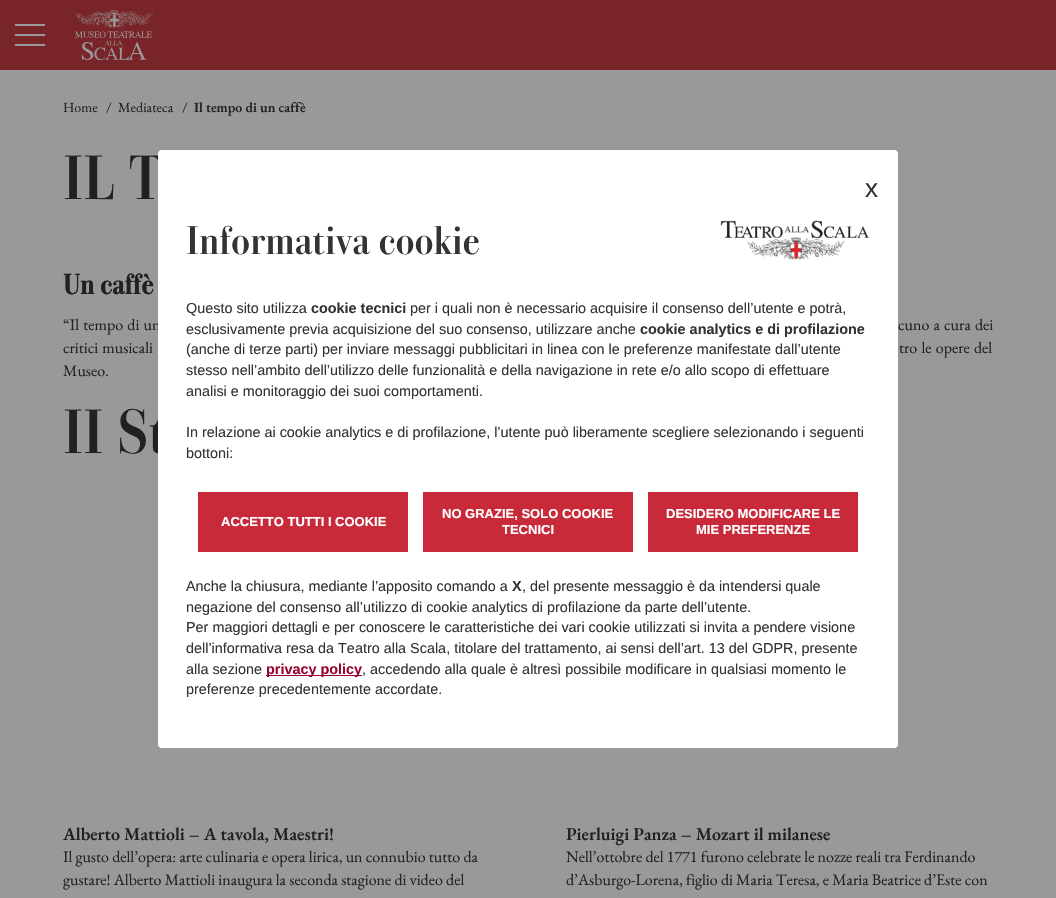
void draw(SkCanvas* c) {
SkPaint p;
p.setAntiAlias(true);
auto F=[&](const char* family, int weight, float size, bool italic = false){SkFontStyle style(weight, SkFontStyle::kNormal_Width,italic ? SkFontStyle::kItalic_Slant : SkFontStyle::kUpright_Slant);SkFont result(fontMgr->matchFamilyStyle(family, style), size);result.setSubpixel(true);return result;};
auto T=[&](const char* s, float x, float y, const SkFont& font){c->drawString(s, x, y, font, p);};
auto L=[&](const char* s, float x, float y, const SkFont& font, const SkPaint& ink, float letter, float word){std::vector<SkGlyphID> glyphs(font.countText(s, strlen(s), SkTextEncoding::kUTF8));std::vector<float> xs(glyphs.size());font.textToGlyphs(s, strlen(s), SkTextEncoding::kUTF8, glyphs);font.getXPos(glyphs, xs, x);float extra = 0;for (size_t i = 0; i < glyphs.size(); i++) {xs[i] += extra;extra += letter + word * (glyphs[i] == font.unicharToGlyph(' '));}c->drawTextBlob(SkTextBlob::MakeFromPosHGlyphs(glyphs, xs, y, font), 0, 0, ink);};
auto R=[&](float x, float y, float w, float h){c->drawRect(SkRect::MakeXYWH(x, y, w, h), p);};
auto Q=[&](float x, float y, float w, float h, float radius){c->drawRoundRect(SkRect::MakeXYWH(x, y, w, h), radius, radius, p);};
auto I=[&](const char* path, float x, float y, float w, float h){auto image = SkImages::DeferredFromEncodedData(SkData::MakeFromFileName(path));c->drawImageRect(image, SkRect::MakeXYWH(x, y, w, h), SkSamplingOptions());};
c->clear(0xff999999);
p.setColor(0xff792428);
R(0,0,1056,70);
p.setColor(0xff999999);
R(15,34,30,2);
R(15,24,30,2);
R(15,44,30,2);
I("1.png",75,10,78,50);
auto f1 = F("EB Garamond",400,14);
p.setColor(0xff212121);
T("Home",63,112,f1);
T("/",106,112,f1);
T("Mediateca",118,112,f1);
T("/",182,112,f1);
auto f2 = F("EB Garamond",600,14);
T("Il tempo di un caffè",194,112,f2);
auto f3 = F("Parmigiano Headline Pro",500,60);
T("IL T",63,199,f3);
auto f4 = F("Parmigiano Headline Pro",700,27);
T("Un caffè",63,294,f4);
auto f5 = F("EB Garamond",400,16);
L("“Il tempo di un",63,330,f5,p,0,1);
L("cuno a cura dei",898,330,f5,p,0,1);
L("critici musicali",63,353,f5,p,0,1);
L("tro le opere del",899,353,f5,p,0,1);
T("Museo.",63,376,f5);
T("II St",63,453,f3);
auto f6 = F("EB Garamond",600,18);
T("Alberto Mattioli – A tavola, Maestri!",63,840,f6);
T("Il gusto dell’opera: arte culinaria e opera lirica, un connubio tutto da",63,862,f5);
T("gustare! Alberto Mattioli inaugura la seconda stagione di video del",63,885,f5);
T("Pierluigi Panza – Mozart il milanese",566,840,f6);
T("Nell’ottobre del 1771 furono celebrate le nozze reali tra Ferdinando",566,862,f5);
T("d’Asburgo-Lorena, figlio di Maria Teresa, e Maria Beatrice d’Este con",566,885,f5);
p.setColor(0xffffffff);
Q(158,150,740,598,4);
auto f7 = F("Liberation Sans",400,26);
p.setColor(0xff333333);
T("x",865,197,f7);
auto f8 = F("Parmigiano Headline Pro",500,38.5);
T("Informativa cookie",186,254,f8);
I("2.png",720,220,149,40);
auto f9 = F("Liberation Sans",400,14.4);
T("Questo sito utilizza",186,313,f9);
auto f10 = F("Liberation Sans",700,14.4);
T("cookie tecnici",311,313,f10);
T("per i quali non è necessario acquisire il consenso dell’utente e potrà,",410,313,f9);
T("esclusivamente previa acquisizione del suo consenso, utilizzare anche",186,334,f9);
T("cookie analytics e di profilazione",640,334,f10);
T("(anche di terze parti) per inviare messaggi pubblicitari in linea con le preferenze manifestate dall’utente",186,354,f9);
T("stesso nell’ambito dell’utilizzo delle funzionalità e della navigazione in rete e/o allo scopo di effettuare",186,375,f9);
T("analisi e monitoraggio dei suoi comportamenti.",186,396,f9);
T("In relazione ai cookie analytics e di profilazione, l’utente può liberamente scegliere selezionando i seguenti",186,437,f9);
T("bottoni:",186,458,f9);
p.setColor(0xffc82a39);
R(198,492,210,60);
auto f11 = F("Liberation Sans",700,13);
p.setColor(0xffffffff);
T("ACCETTO TUTTI I COOKIE",221,526,f11);
p.setColor(0xffc82a39);
R(423,492,210,60);
p.setColor(0xffffffff);
T("NO GRAZIE, SOLO COOKIE",442,518,f11);
T("TECNICI",502,534,f11);
p.setColor(0xffc82a39);
R(648,492,210,60);
p.setColor(0xffffffff);
T("DESIDERO MODIFICARE LE",666,518,f11);
T("MIE PREFERENZE",696,534,f11);
p.setColor(0xff333333);
T("Anche la chiusura, mediante l’apposito comando a",186,591,f9);
T("X",512,591,f10);
T(", del presente messaggio è da intendersi quale",522,591,f9);
T("negazione del consenso all’utilizzo di cookie analytics di profilazione da parte dell’utente.",186,612,f9);
T("Per maggiori dettagli e per conoscere le caratteristiche dei vari cookie utilizzati si invita a pendere visione",186,632,f9);
T("dell’informativa resa da Teatro alla Scala, titolare del trattamento, ai sensi dell’art. 13 del GDPR, presente",186,653,f9);
T("alla sezione",186,674,f9);
p.setColor(0xff99042f);
R(266,675,96,1);
T("privacy policy",266,674,f10);
p.setColor(0xff333333);
T(", accedendo alla quale è altresì possibile modificare in qualsiasi momento le",362,674,f9);
T("preferenze precedentemente accordate.",186,694,f9);
}
